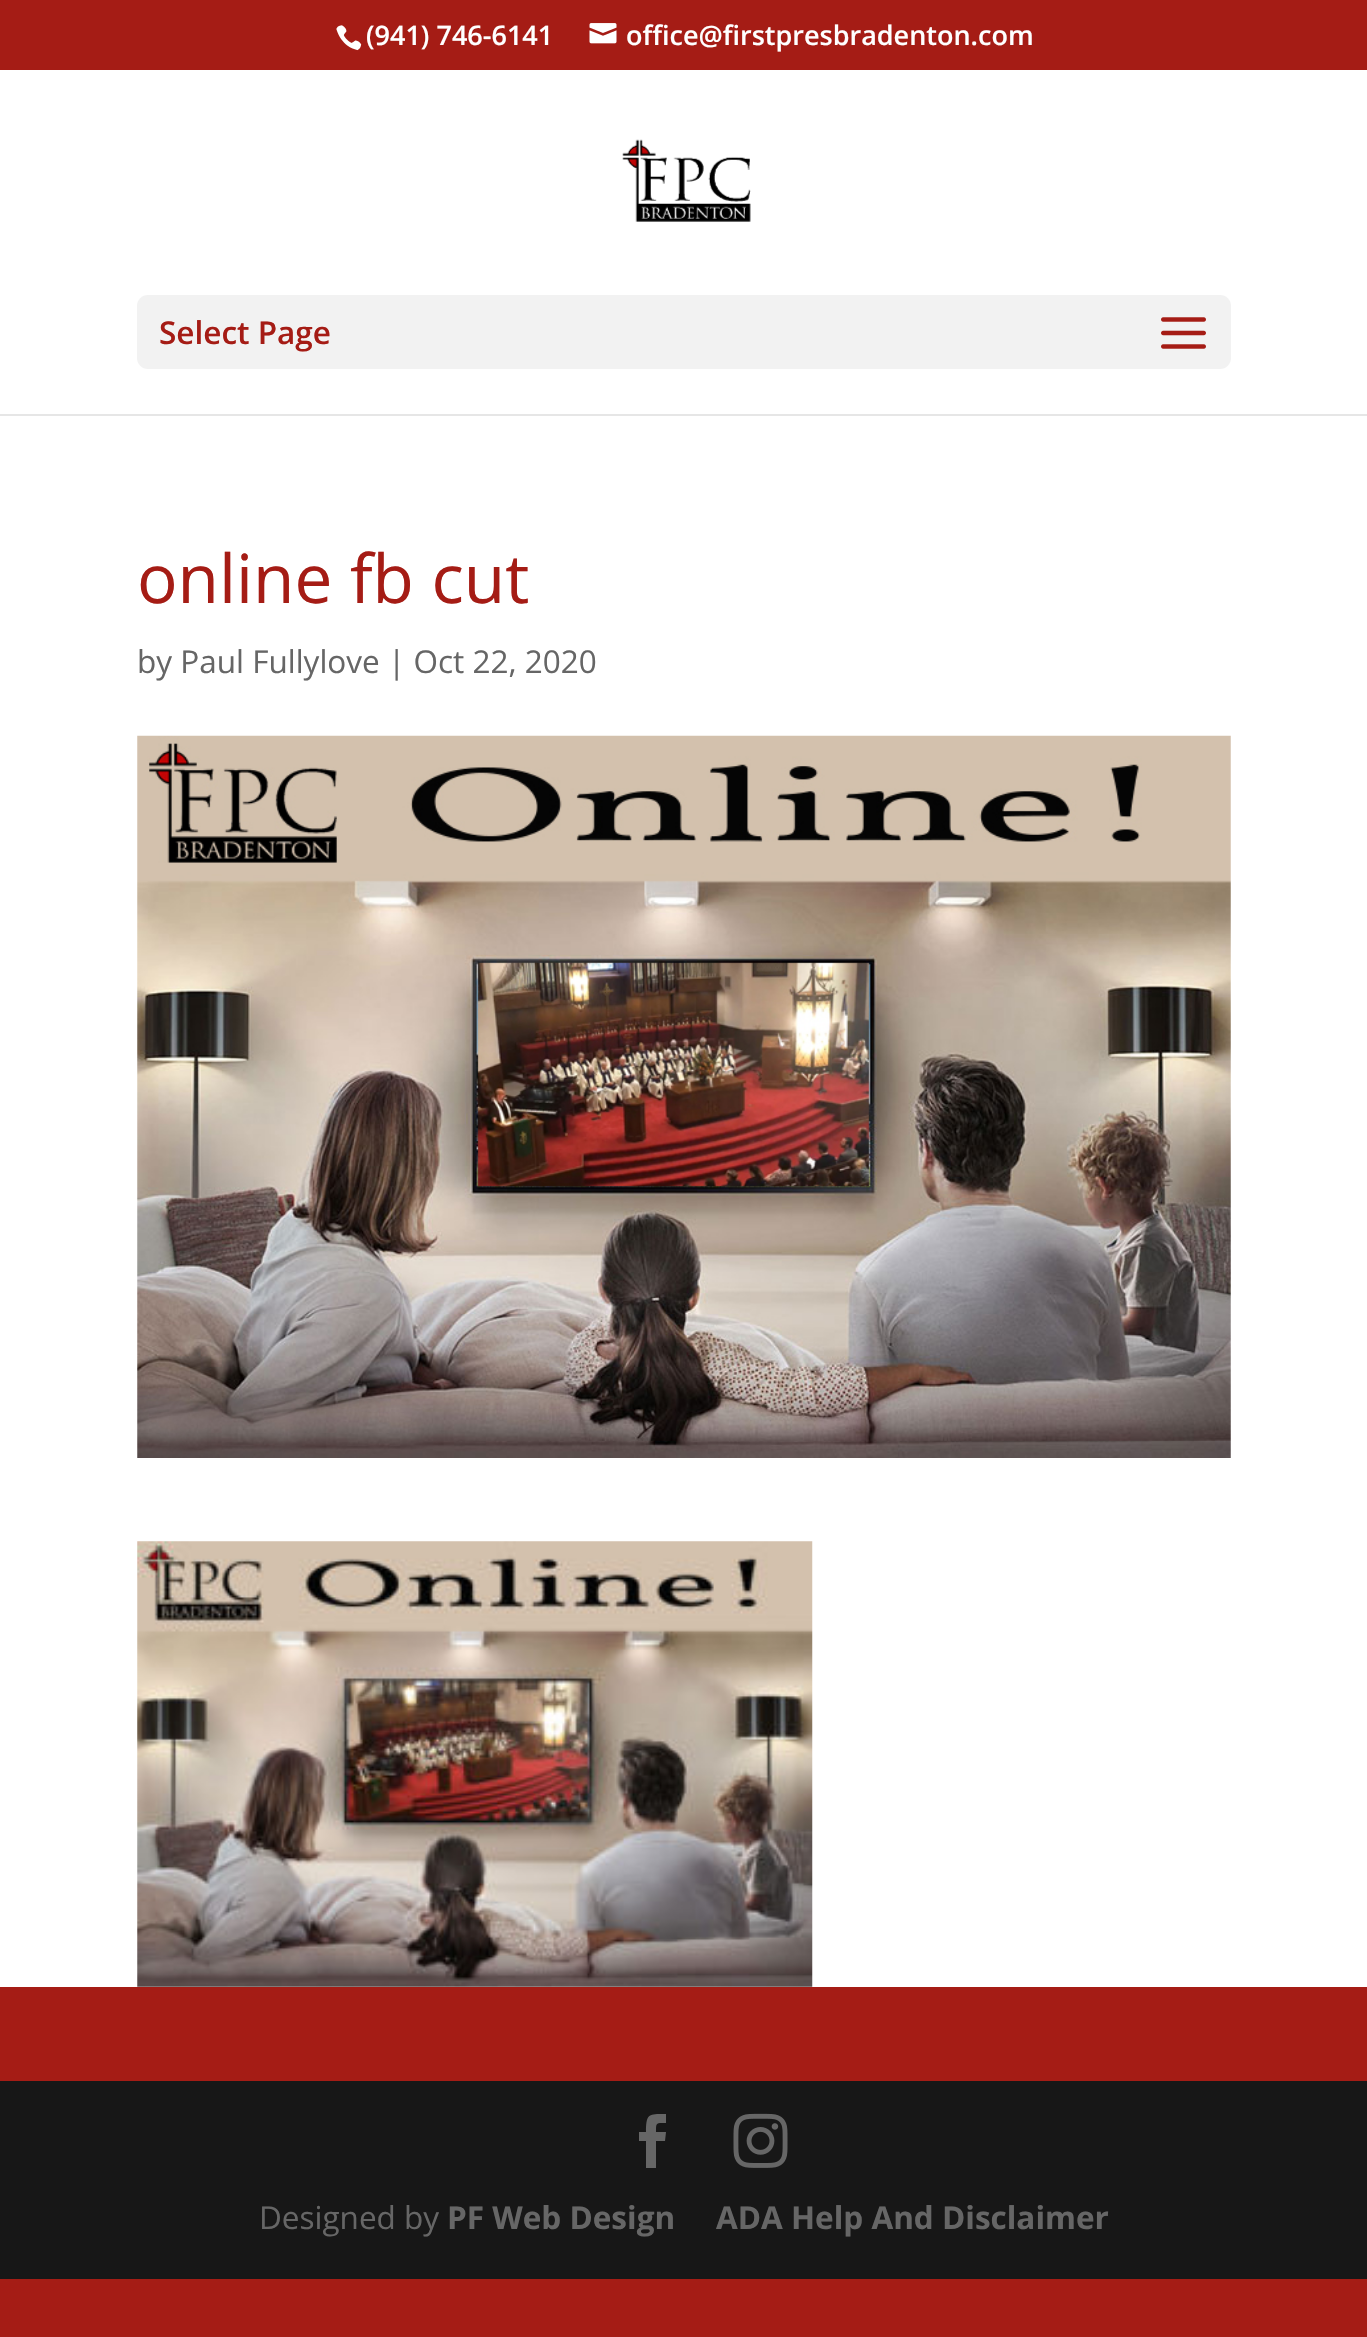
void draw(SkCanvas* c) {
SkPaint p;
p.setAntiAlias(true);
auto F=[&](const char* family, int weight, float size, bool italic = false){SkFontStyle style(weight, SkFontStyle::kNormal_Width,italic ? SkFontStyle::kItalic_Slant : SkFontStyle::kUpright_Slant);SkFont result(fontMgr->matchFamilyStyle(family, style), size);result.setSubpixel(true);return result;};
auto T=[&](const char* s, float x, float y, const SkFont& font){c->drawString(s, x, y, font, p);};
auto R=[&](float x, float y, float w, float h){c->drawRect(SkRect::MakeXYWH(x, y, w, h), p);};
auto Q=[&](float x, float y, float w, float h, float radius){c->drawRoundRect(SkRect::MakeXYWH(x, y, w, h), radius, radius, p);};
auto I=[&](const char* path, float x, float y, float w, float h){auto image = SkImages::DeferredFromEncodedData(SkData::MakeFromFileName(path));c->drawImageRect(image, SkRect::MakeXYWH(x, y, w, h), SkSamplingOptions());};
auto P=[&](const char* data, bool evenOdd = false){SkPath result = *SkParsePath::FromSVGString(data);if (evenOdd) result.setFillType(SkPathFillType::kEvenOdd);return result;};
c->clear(0xffa51c15);
I("1.png",336,25,26,26);
auto f1 = F("Open Sans",600,27);
p.setColor(0xffffffff);
T("(941) 746-6141",366,45,f1);
I("2.png",589,23,28,21);
T("office@firstpresbradenton.com",626,45,f1);
p.setColor(0xffe6e6e6);
R(0,414,1367,2);
p.setColor(0xffffffff);
R(0,70,1367,344);
I("3.png",622,139,129,83);
p.setColor(0xfff2f2f2);
Q(137,295,1094,74,11);
auto f2 = F("Open Sans",600,31.5);
p.setColor(0xffa51c15);
T("Select Page",159,344,f2);
I("4.png",1161,317,45,32);
p.setColor(0xffffffff);
R(0,416,1367,1571);
auto f3 = F("Open Sans",400,67.5);
p.setColor(0xffa51c15);
T("online fb cut",137,603,f3);
auto f4 = F("Open Sans",400,31.5);
p.setColor(0xff666666);
T("by Paul Fullylove | Oct 22, 2020",137,673,f4);
I("5.png",137,735,1094,723);
I("6.png",137,1541,676,446);
p.setColor(0xff171717);
R(0,2081,1367,198);
p.setColor(0xff666666);
c->drawPath(P("M646 2168h10v-27h9l1-9h-10c0-10 0-9 10-9v-9c-17 0-20-1-20 18h-7v9h7z"),p);
I("7.png",733,2113,55,55);
T("Designed by",259,2229,f4);
auto f5 = F("Open Sans",700,31.5);
T("PF Web Design",447,2229,f5);
T("ADA Help And Disclaimer",716,2229,f5);
}
